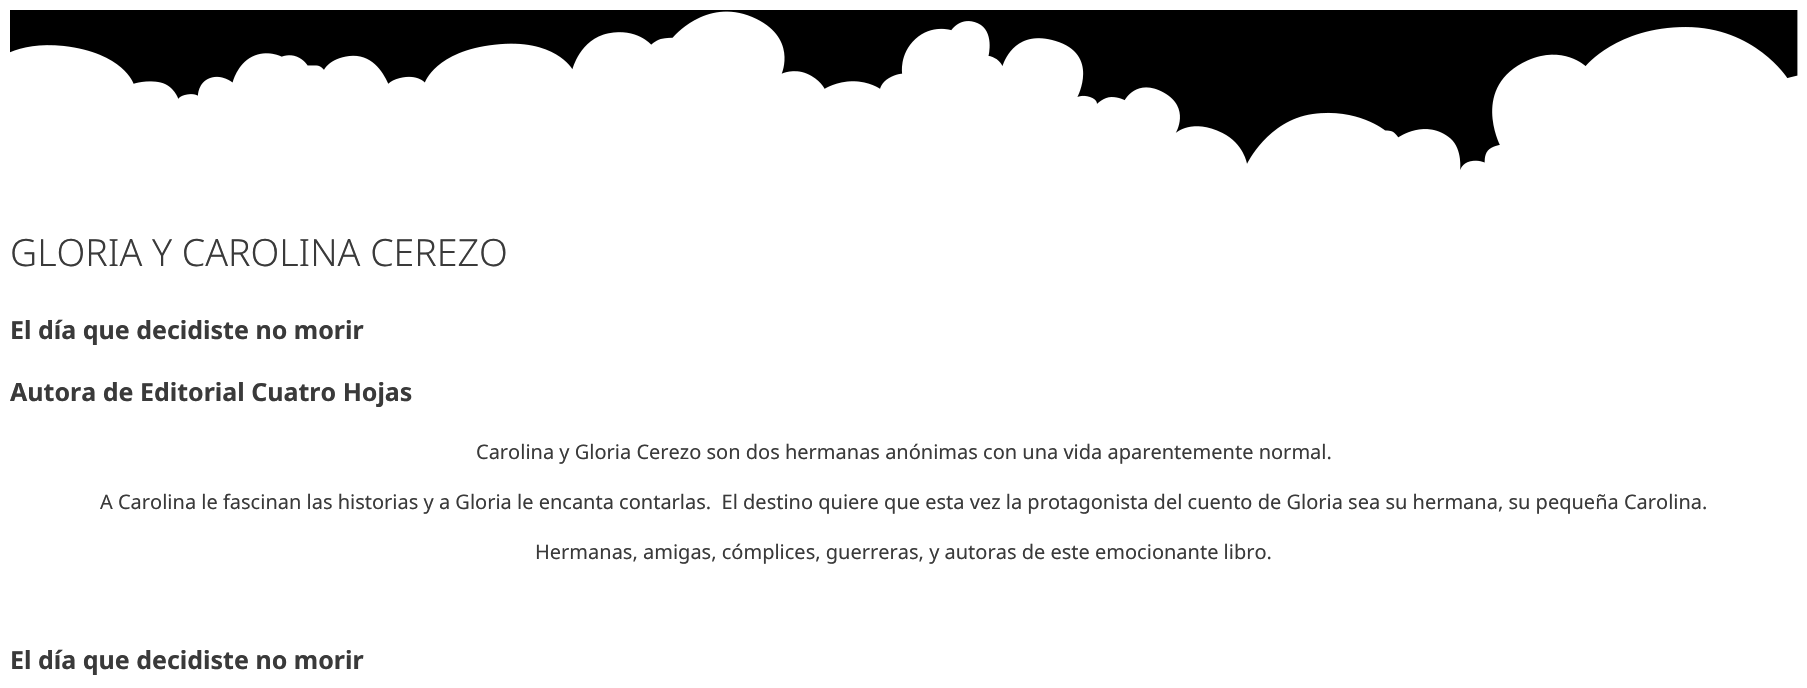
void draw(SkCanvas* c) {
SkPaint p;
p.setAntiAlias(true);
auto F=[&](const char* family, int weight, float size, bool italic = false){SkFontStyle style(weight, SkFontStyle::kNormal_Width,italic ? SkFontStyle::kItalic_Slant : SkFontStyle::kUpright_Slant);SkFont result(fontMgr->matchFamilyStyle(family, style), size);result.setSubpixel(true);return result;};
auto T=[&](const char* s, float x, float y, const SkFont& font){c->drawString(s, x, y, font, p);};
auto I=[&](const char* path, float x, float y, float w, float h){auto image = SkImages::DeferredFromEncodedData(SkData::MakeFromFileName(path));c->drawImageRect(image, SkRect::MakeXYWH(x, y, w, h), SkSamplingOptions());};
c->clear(0xffffffff);
I("1.png",10,10,1788,160);
auto f1 = F("Noto Sans",300,37.5);
p.setColor(0xff3a3a3a);
T("GLORIA Y CAROLINA CEREZO",10,266,f1);
auto f2 = F("Noto Sans",700,25);
T("El día que decidiste no morir",10,339,f2);
T("Autora de Editorial Cuatro Hojas",10,401,f2);
auto f3 = F("Noto Sans",400,20);
T("Carolina y Gloria Cerezo son dos hermanas anónimas con una vida aparentemente normal.",476,459,f3);
T("A Carolina le fascinan las historias y a Gloria le encanta contarlas.  El destino quiere que esta vez la protagonista del cuento de Gloria sea su hermana, su pequeña Carolina.",100,509,f3);
T("Hermanas, amigas, cómplices, guerreras, y autoras de este emocionante libro.",535,559,f3);
T("El día que decidiste no morir",10,669,f2);
}
